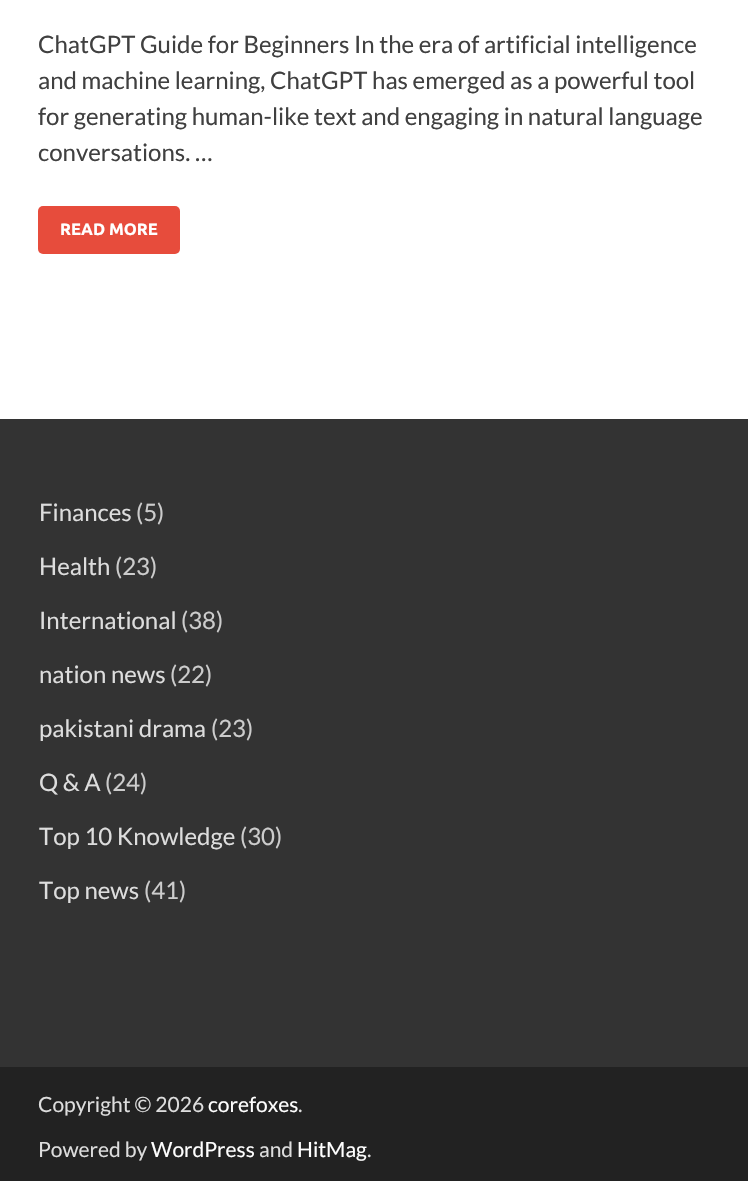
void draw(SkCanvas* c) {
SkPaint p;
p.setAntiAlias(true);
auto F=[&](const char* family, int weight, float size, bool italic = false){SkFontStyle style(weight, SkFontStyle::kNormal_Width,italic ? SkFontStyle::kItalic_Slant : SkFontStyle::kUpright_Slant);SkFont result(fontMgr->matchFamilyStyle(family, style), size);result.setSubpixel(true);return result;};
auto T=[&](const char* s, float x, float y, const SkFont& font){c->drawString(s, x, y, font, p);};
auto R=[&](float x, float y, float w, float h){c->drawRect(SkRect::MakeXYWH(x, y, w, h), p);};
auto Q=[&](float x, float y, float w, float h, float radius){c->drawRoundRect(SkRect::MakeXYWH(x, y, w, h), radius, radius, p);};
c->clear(0xffffffff);
auto f1 = F("Lato",400,24);
p.setColor(0xff404040);
T("ChatGPT Guide for Beginners In the era of artificial intelligence",38,53,f1);
T("and machine learning, ChatGPT has emerged as a powerful tool",38,89,f1);
T("for generating human-like text and engaging in natural language",38,125,f1);
T("conversations. …",38,161,f1);
p.setColor(0xffe74c3c);
Q(38,206,142,48,5);
auto f2 = F("Ubuntu",700,16.5);
p.setColor(0xffffffff);
T("READ MORE",60,235,f2);
p.setColor(0xff333333);
R(0,419,748,648);
p.setColor(0xffdddddd);
T("Finances",39,521,f1);
p.setColor(0xffcccccc);
T("(5)",136,521,f1);
p.setColor(0xffdddddd);
T("Health",39,575,f1);
p.setColor(0xffcccccc);
T("(23)",115,575,f1);
p.setColor(0xffdddddd);
T("International",39,629,f1);
p.setColor(0xffcccccc);
T("(38)",181,629,f1);
p.setColor(0xffdddddd);
T("nation news",39,683,f1);
p.setColor(0xffcccccc);
T("(22)",170,683,f1);
p.setColor(0xffdddddd);
T("pakistani drama",39,737,f1);
p.setColor(0xffcccccc);
T("(23)",211,737,f1);
p.setColor(0xffdddddd);
T("Q & A",39,791,f1);
p.setColor(0xffcccccc);
T("(24)",105,791,f1);
p.setColor(0xffdddddd);
T("Top 10 Knowledge",39,845,f1);
p.setColor(0xffcccccc);
T("(30)",240,845,f1);
p.setColor(0xffdddddd);
T("Top news",39,899,f1);
p.setColor(0xffcccccc);
T("(41)",144,899,f1);
p.setColor(0xff222222);
R(0,1067,748,114);
auto f3 = F("Lato",400,21);
p.setColor(0xffdddddd);
T("Copyright © 2026",38,1112,f3);
p.setColor(0xffffffff);
T("corefoxes",208,1112,f3);
p.setColor(0xffdddddd);
T(".",298,1112,f3);
T("Powered by",38,1157,f3);
p.setColor(0xffffffff);
T("WordPress",151,1157,f3);
p.setColor(0xffdddddd);
T("and",259,1157,f3);
p.setColor(0xffffffff);
T("HitMag",297,1157,f3);
p.setColor(0xffdddddd);
T(".",367,1157,f3);
}
